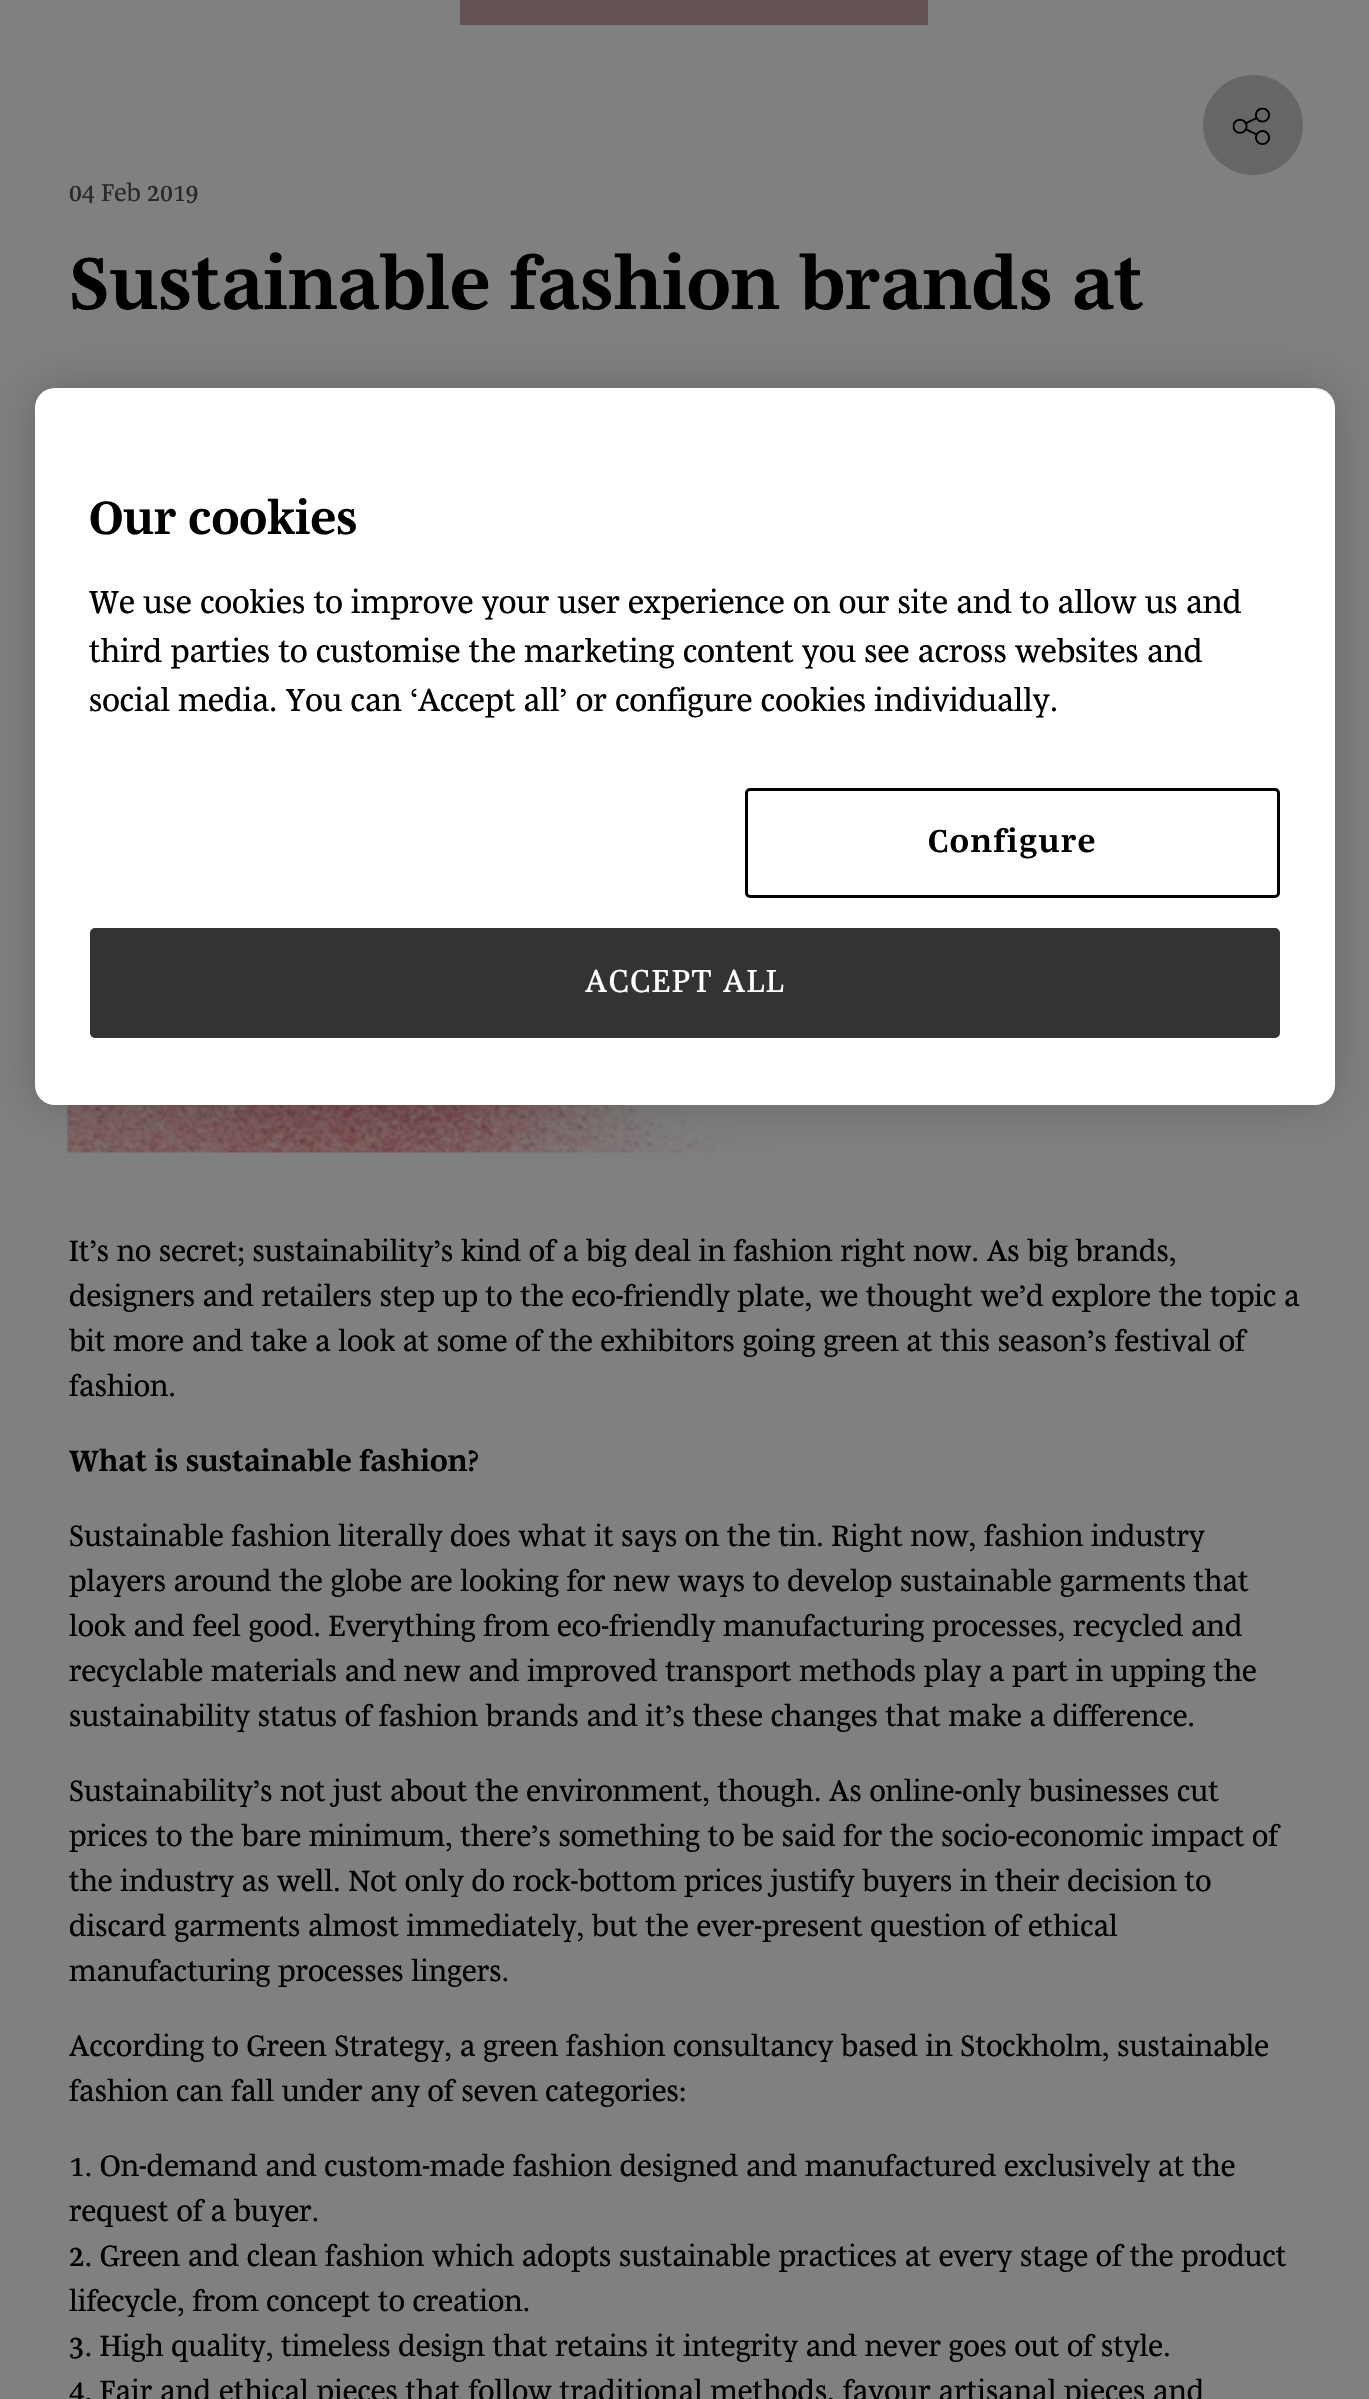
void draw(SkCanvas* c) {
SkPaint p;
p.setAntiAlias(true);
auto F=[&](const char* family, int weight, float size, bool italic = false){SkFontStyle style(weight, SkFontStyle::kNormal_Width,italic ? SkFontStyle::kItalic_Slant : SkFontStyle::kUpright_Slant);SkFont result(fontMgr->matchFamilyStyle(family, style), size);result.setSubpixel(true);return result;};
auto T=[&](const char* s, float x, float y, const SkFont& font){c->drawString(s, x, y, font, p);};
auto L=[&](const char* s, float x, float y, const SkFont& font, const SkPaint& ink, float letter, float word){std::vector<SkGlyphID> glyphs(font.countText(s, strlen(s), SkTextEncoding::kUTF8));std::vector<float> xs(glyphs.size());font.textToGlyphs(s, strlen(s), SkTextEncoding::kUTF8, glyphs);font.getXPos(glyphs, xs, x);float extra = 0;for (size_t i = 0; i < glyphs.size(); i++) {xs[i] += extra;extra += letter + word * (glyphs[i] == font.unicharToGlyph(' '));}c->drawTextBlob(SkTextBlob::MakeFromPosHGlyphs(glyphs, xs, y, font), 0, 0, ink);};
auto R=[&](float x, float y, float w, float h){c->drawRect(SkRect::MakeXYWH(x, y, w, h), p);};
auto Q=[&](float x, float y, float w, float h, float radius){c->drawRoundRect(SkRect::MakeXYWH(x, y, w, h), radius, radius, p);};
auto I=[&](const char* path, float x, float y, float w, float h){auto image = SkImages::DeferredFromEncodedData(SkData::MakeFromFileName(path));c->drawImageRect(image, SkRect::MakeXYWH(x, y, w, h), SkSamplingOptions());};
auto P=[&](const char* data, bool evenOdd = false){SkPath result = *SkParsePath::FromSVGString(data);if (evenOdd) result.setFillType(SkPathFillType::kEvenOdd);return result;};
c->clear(0xff808080);
p.setColor(0xff635252);
R(460,0,468,25);
p.setColor(0xff666666);
c->drawCircle(1253,125,50,p);
I("1.png",1232,107,38,38);
auto f1 = F("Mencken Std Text",400,25);
p.setColor(0xff2a2a2a);
T("04 Feb 2019",69,201,f1);
auto f2 = F("Mencken Std Text",700,75);
p.setColor(0xff000000);
T("Sustainable fashion brands at",69,309,f2);
I("2.png",67,1105,1229,48);
auto f3 = F("Mencken Std Text",400,30);
T("It’s no secret; sustainability’s kind of a big deal in fashion right now. As big brands,",69,1261,f3);
T("designers and retailers step up to the eco-friendly plate, we thought we’d explore the topic a",69,1306,f3);
T("bit more and take a look at some of the exhibitors going green at this season’s festival of",69,1351,f3);
T("fashion.",69,1396,f3);
auto f4 = F("Mencken Std Text",700,30);
T("What is sustainable fashion?",69,1471,f4);
T("Sustainable fashion literally does what it says on the tin. Right now, fashion industry",69,1546,f3);
T("players around the globe are looking for new ways to develop sustainable garments that",69,1591,f3);
T("look and feel good. Everything from eco-friendly manufacturing processes, recycled and",69,1636,f3);
T("recyclable materials and new and improved transport methods play a part in upping the",69,1681,f3);
T("sustainability status of fashion brands and it’s these changes that make a difference.",69,1726,f3);
T("Sustainability’s not just about the environment, though. As online-only businesses cut",69,1801,f3);
T("prices to the bare minimum, there’s something to be said for the socio-economic impact of",69,1846,f3);
T("the industry as well. Not only do rock-bottom prices justify buyers in their decision to",69,1891,f3);
T("discard garments almost immediately, but the ever-present question of ethical",69,1936,f3);
T("manufacturing processes lingers.",69,1981,f3);
T("According to Green Strategy, a green fashion consultancy based in Stockholm, sustainable",69,2056,f3);
T("fashion can fall under any of seven categories:",69,2101,f3);
T("1. On-demand and custom-made fashion designed and manufactured exclusively at the",69,2176,f3);
T("request of a buyer.",69,2221,f3);
T("2. Green and clean fashion which adopts sustainable practices at every stage of the product",69,2266,f3);
T("lifecycle, from concept to creation.",69,2311,f3);
T("3. High quality, timeless design that retains it integrity and never goes out of style.",69,2356,f3);
T("4. Fair and ethical pieces that follow traditional methods, favour artisanal pieces and",69,2401,f3);
c->save();
c->clipPath(P("M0 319h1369v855h-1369zm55 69h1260c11 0 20 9 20 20v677c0 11-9 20-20 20h-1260c-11 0-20-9-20-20v-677c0-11 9-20 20-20z",true),true);
p.setColor(0x33000000);
p.setMaskFilter(SkMaskFilter::MakeBlur(kNormal_SkBlurStyle, 22.5));
c->drawRoundRect(SkRect::MakeXYWH(35,388,1300,717),20,20,p);
p.setMaskFilter(nullptr);
c->restore();
p.setColor(0xffffffff);
Q(35,388,1300,717,20);
auto f5 = F("Mencken Std Text",700,47.5);
p.setColor(0xff000000);
T("Our cookies",89,534,f5);
auto f6 = F("Mencken Std Text",400,32.5);
T("We use cookies to improve your user experience on our site and to allow us and",89,613,f6);
T("third parties to customise the marketing content you see across websites and",89,662,f6);
T("social media. You can ‘Accept all’ or configure cookies individually.",89,711,f6);
p.setStroke(true);
p.setStrokeWidth(3);
c->drawRoundRect(SkRect::MakeXYWH(746.5,789.5,532,107),3.5,3.5,p);
auto f7 = F("Mencken Std Text",700,32.5);
p.setStroke(false);
L("Configure",928,852,f7,p,1.6,0);
p.setColor(0xff333333);
c->drawRoundRect(SkRect::MakeXYWH(91.5,929.5,1187,107),3.5,3.5,p);
p.setStroke(true);
c->drawRoundRect(SkRect::MakeXYWH(91.5,929.5,1187,107),3.5,3.5,p);
p.setStroke(false);
p.setColor(0xffffffff);
L("ACCEPT ALL",585,992,f6,p,1.6,0);
}
